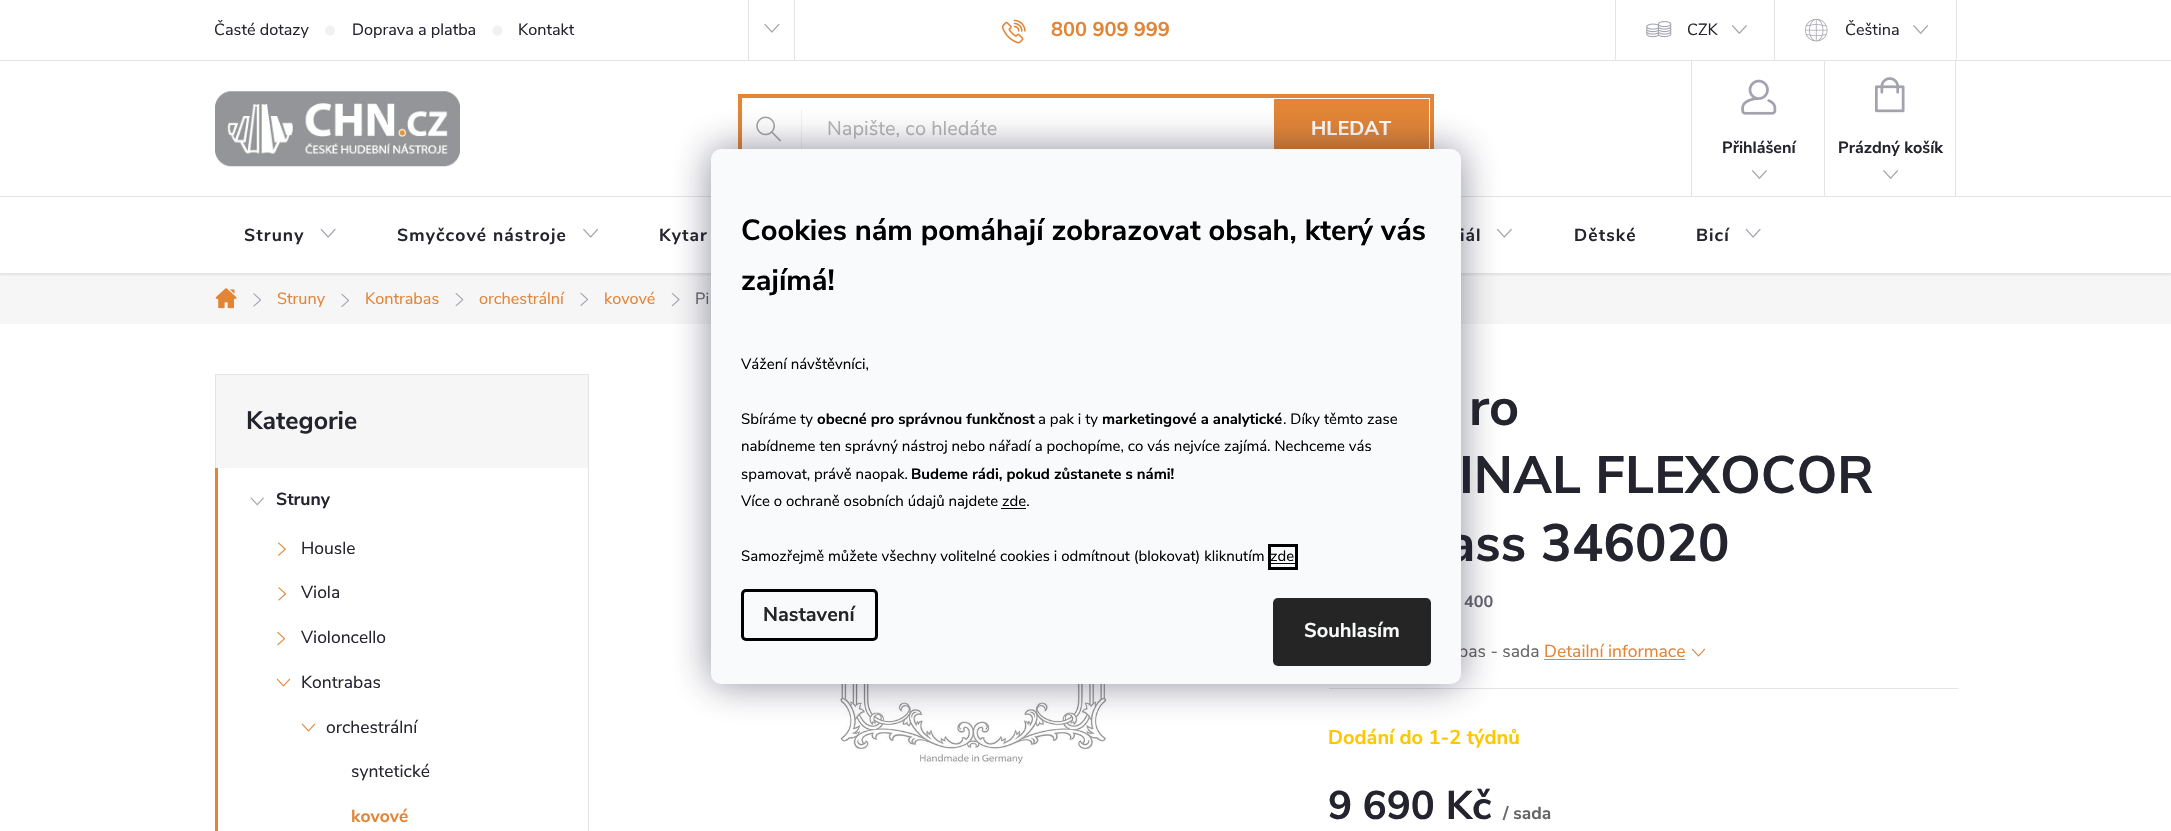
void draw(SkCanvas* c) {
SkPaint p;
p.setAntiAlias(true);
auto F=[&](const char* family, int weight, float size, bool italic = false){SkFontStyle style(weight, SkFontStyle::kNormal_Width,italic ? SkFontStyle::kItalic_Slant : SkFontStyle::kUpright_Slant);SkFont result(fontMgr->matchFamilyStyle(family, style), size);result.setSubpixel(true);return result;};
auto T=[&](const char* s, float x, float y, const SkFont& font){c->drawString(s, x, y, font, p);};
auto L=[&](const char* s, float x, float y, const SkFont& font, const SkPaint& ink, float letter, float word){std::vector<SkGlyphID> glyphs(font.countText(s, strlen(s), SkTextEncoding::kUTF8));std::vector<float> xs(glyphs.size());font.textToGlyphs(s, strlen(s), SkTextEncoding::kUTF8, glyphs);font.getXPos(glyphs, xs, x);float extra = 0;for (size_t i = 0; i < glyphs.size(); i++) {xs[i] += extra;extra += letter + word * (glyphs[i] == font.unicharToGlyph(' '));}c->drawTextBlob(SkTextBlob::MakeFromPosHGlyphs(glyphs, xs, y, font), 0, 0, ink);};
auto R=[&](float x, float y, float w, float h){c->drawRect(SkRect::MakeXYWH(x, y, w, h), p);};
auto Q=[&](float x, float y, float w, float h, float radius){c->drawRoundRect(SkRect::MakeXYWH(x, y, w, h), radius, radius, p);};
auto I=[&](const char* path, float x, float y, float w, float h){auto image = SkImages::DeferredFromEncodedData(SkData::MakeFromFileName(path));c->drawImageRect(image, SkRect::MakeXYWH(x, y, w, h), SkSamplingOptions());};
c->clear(0xffffffff);
p.setColor(0xffe4e4e4);
R(0,60,2171,1);
auto f1 = F("Nunito Sans",400,16.25);
p.setColor(0xff24242e);
T("Časté dotazy",214,35,f1);
I("1.png",325,25,10,11);
T("Doprava a platba",352,35,f1);
I("2.png",492,25,11,11);
T("Kontakt",518,35,f1);
p.setColor(0xffe4e4e4);
R(794,0,1,60);
R(748,0,1,60);
I("3.png",764,23,16,10);
I("4.png",1001,19,25,25);
auto f2 = F("Nunito Sans",700,20);
p.setColor(0xffe28536);
T("800 909 999",1051,36,f2);
p.setColor(0xffe4e4e4);
R(1956,0,1,60);
R(1615,0,1,60);
I("5.png",1646,21,26,17);
p.setColor(0xff24242e);
T("CZK",1687,35,f1);
I("6.png",1732,25,15,9);
p.setColor(0xffe4e4e4);
R(1774,0,1,60);
I("7.png",1805,18,23,24);
p.setColor(0xff24242e);
T("Čeština",1845,35,f1);
I("8.png",1913,25,15,9);
I("9.png",215,91,245,76);
p.setStroke(true);
p.setStrokeWidth(4);
p.setColor(0xffe28536);
c->drawRect(SkRect::MakeXYWH(740,96,692,66),p);
p.setStroke(false);
p.setColor(0xfff1f1f1);
R(801,109,1,40);
I("10.png",756,116,25,26);
auto f3 = F("Nunito Sans",400,20);
p.setColor(0xffb6b6b6);
T("Napište, co hledáte",827,135,f3);
p.setColor(0xffe28536);
R(1274,99,155,50);
p.setColor(0xffffffff);
T("HLEDAT",1311,135,f2);
p.setColor(0xffe4e4e4);
R(1691,61,1,135);
I("11.png",1741,79,36,36);
auto f4 = F("Nunito Sans",700,16.25);
p.setColor(0xff24242e);
T("Přihlášení",1722,153,f4);
I("6.png",1752,170,15,9);
p.setColor(0xffe4e4e4);
R(1955,61,1,135);
R(1824,61,1,135);
I("12.png",1875,77,30,36);
p.setColor(0xff24242e);
T("Prázdný košík",1838,153,f4);
I("8.png",1883,170,15,9);
p.setColor(0xfff6f6f6);
R(0,274,2171,50);
c->save();
c->clipRect(SkRect::MakeXYWH(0,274,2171,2));
p.setColor(0x0d000000);
p.setMaskFilter(SkMaskFilter::MakeBlur(kNormal_SkBlurStyle, 1));
c->drawRect(SkRect::MakeXYWH(0,199,2171,77),p);
p.setMaskFilter(nullptr);
c->restore();
auto f5 = F("Nunito Sans",700,17.5);
p.setColor(0xff24242e);
L("Struny",244,241,f5,p,1.1,0);
I("13.png",320,228,16,10);
L("Smyčcové nástroje",397,241,f5,p,1.1,0);
I("14.png",583,228,15,10);
L("Kytar",659,241,f5,p,1.1,0);
L("iál",1460,241,f5,p,1.1,0);
I("15.png",1497,228,15,10);
L("Dětské",1574,241,f5,p,1.1,0);
L("Bicí",1696,241,f5,p,1.1,0);
I("13.png",1745,228,16,10);
p.setColor(0xffe4e4e4);
R(0,196,2171,1);
R(0,273,2171,1);
I("16.png",215,288,22,21);
I("17.png",253,293,8,14);
p.setColor(0xffe28536);
T("Struny",277,304,f1);
I("18.png",341,293,8,14);
T("Kontrabas",365,304,f1);
I("19.png",455,293,9,14);
T("orchestrální",479,304,f1);
I("20.png",580,292,8,14);
T("kovové",604,304,f1);
I("21.png",671,293,9,14);
p.setColor(0xff656570);
T("Pi",695,304,f1);
p.setColor(0xfff6f6f6);
R(216,375,372,93);
p.setStroke(true);
p.setStrokeWidth(1);
p.setColor(0xffe4e4e4);
c->drawRect(SkRect::MakeXYWH(215.5,374.5,373,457),p);
auto f6 = F("Nunito Sans",700,25);
p.setStroke(false);
p.setColor(0xff24242e);
T("Kategorie",246,429,f6);
p.setColor(0xffe28536);
R(215,468,3,363);
I("22.png",250,497,14,9);
p.setColor(0xff24242e);
T("Struny",276,505,f5);
I("23.png",278,542,8,14);
auto f7 = F("Nunito Sans",400,17.5);
T("Housle",301,554,f7);
I("24.png",278,587,8,14);
T("Viola",301,598,f7);
I("25.png",277,632,9,14);
T("Violoncello",301,643,f7);
I("26.png",276,678,15,9);
T("Kontrabas",301,688,f7);
I("26.png",301,723,15,9);
T("orchestrální",326,733,f7);
T("syntetické",351,777,f7);
p.setColor(0xffe28536);
T("kovové",351,822,f5);
I("27.png",816,684,317,82);
auto f8 = F("Nunito Sans",700,52.5);
p.setColor(0xff24242e);
T("ro",1469,425,f8);
T("INAL FLEXOCOR",1459,493,f8);
T("ass 346020",1447,561,f8);
p.setColor(0xff656570);
T("400",1464,607,f4);
p.setColor(0xffe4e4e4);
R(1329,688,629,1);
p.setColor(0xff656565);
T("bas - sada",1458,657,f7);
p.setColor(0xffe28536);
T("Detailní informace",1544,657,f7);
R(1544,659,141,1);
I("26.png",1691,648,15,9);
p.setColor(0xffffc702);
T("Dodání do 1-2 týdnů",1328,744,f2);
auto f9 = F("Nunito Sans",700,40);
p.setColor(0xff24242e);
T("9 690 Kč",1328,819,f9);
p.setColor(0xff656565);
T("/ sada",1503,819,f5);
p.setColor(0x801b1939);
p.setMaskFilter(SkMaskFilter::MakeBlur(kNormal_SkBlurStyle, 19));
c->drawRoundRect(SkRect::MakeXYWH(711,149,750,535),10,10,p);
p.setMaskFilter(nullptr);
p.setColor(0xfff8fafb);
Q(711,149,750,535,10);
auto f10 = F("Nunito Sans",700,29.1);
p.setColor(0xff000000);
T("Cookies nám pomáhají zobrazovat obsah, který vás",741,240,f10);
T("zajímá!",741,290,f10);
auto f11 = F("Nunito Sans",400,15);
T("Vážení návštěvníci,",741,369,f11);
T("Sbíráme ty",741,424,f11);
auto f12 = F("Nunito Sans",700,15);
T("obecné pro správnou funkčnost",817,424,f12);
T("a pak i ty",1038,424,f11);
T("marketingové a analytické",1102,424,f12);
T(". Díky těmto zase",1283,424,f11);
T("nabídneme ten správný nástroj nebo nářadí a pochopíme, co vás nejvíce zajímá. Nechceme vás",741,451,f11);
T("spamovat, právě naopak.",741,479,f11);
T("Budeme rádi, pokud zůstanete s námi!",911,479,f12);
T("Více o ochraně osobních údajů najdete zde.",741,506,f11);
R(1001,508,25,1);
T("Samozřejmě můžete všechny volitelné cookies i odmítnout (blokovat) kliknutím",741,561,f11);
p.setStroke(true);
p.setStrokeWidth(3);
c->drawRect(SkRect::MakeXYWH(1269.5,545.5,27,23),p);
p.setStroke(false);
T("zde",1270,561,f11);
R(1270,563,25,1);
p.setStroke(true);
c->drawRoundRect(SkRect::MakeXYWH(742.5,590.5,134,49),3.5,3.5,p);
p.setStroke(false);
p.setColor(0xff252525);
T("Nastavení",763,621,f2);
Q(1273,598,158,68,5);
p.setColor(0xfff8fafb);
T("Souhlasím",1304,637,f2);
}
